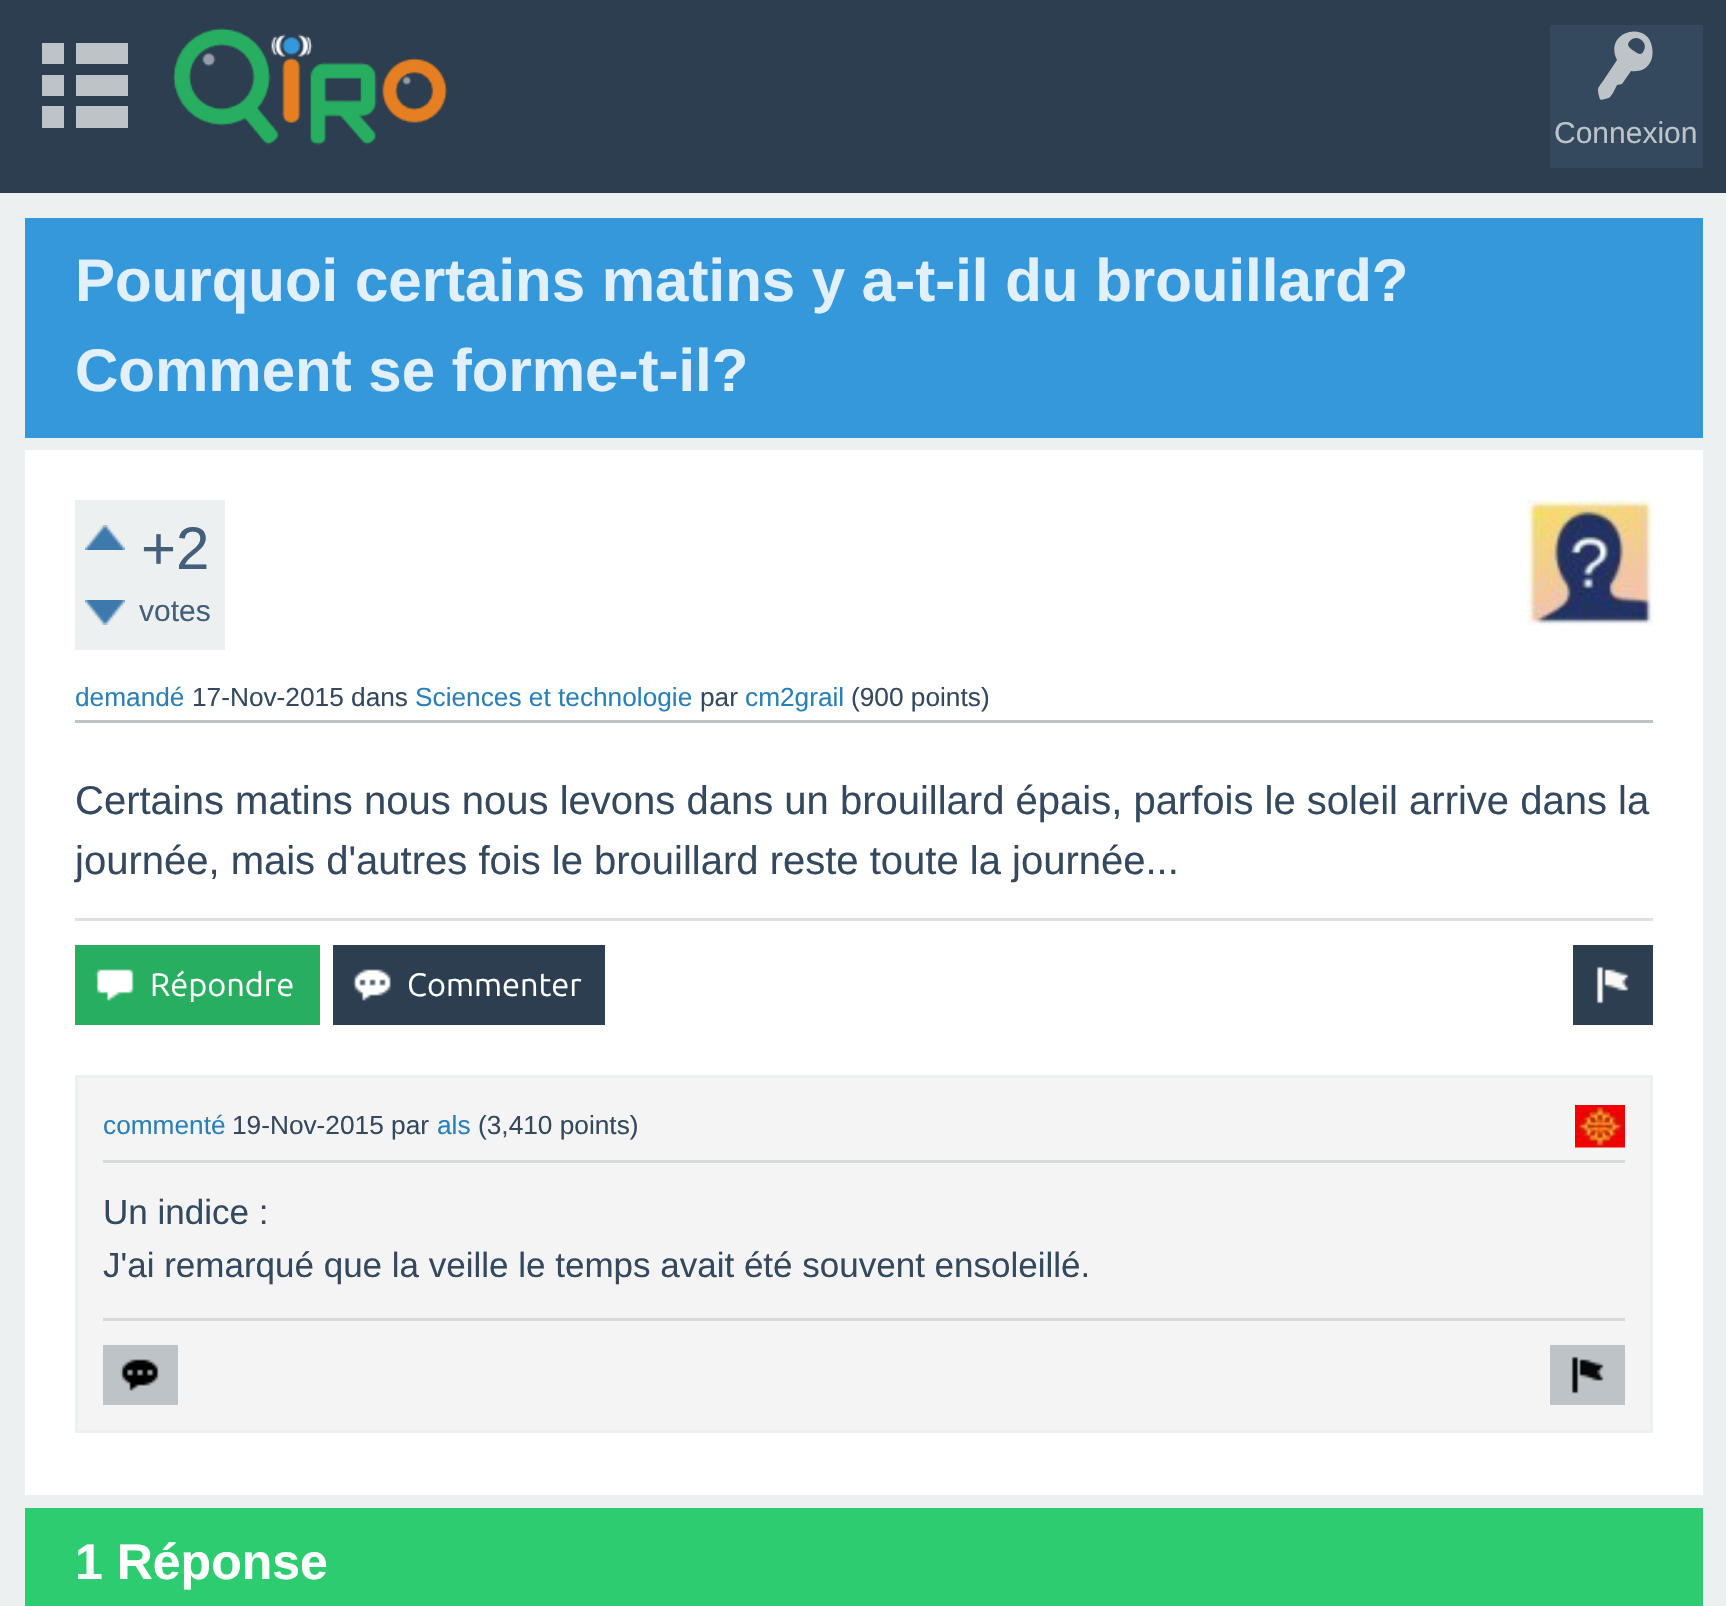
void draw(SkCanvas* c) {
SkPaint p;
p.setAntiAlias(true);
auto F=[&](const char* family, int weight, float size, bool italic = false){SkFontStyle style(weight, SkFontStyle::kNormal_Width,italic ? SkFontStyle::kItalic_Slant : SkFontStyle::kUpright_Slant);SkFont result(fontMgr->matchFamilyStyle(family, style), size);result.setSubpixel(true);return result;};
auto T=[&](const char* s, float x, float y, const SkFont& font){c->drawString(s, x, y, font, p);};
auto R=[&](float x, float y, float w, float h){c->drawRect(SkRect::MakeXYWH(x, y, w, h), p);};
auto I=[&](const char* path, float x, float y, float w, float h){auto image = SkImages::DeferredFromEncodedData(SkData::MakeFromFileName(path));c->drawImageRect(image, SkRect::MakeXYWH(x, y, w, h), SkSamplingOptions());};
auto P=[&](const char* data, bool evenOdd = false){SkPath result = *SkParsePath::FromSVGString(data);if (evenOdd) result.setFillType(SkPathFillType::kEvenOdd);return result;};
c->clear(0xffecf0f1);
p.setColor(0xff2c3e50);
R(0,0,1726,193);
p.setColor(0xffbdc3c7);
c->drawPath(P("M42 128v-22h22v22zm0-32v-21h22v21zm0-32v-21h22v21zm34 64v-22h52v22zm0-32v-21h52v21zm0-32v-21h52v21z"),p);
I("1.png",173,28,275,117);
p.setColor(0xff34495e);
R(1550,25,153,143);
p.setColor(0xffbdc3c7);
c->drawPath(P("M1652 47c3 15-6 26-21 24l-9 13l-5 1l-4 8c-3 4-3 5-8 6c-4 1-5 2-6-3c-2-10-1-7 6-18l12-18c-14-29 31-40 35-13zm-9 5c7-9-7-20-14-10c-3 4 2 7 5 9c3 2 7 5 9 1z"),p);
auto f1 = F("Liberation Sans",400,30);
T("Connexion",1554,143,f1);
p.setColor(0xff3498db);
R(25,218,1678,220);
auto f2 = F("Liberation Sans",700,60);
p.setColor(0xffe1f0fa);
T("Pourquoi certains matins y a-t-il du brouillard?",75,301,f2);
T("Comment se forme-t-il?",75,391,f2);
p.setColor(0xffffffff);
R(25,450,1678,1045);
p.setColor(0xffecf0f1);
R(75,500,150,150);
I("2.png",85,525,40,25);
I("3.png",85,600,40,25);
auto f3 = F("Liberation Sans",400,60);
p.setColor(0xff445f7a);
T("+2",141,569,f3);
T("votes",139,621,f1);
I("4.png",1527,500,126,125);
p.setColor(0xffbdc3c7);
R(75,720,1578,3);
auto f4 = F("Liberation Sans",400,26.25);
p.setColor(0xff2980b9);
T("demandé",75,706,f4);
p.setColor(0xff34495e);
T("17-Nov-2015 dans",192,706,f4);
p.setColor(0xff2980b9);
T("Sciences et technologie",415,706,f4);
p.setColor(0xff34495e);
T("par",700,706,f4);
p.setColor(0xff2980b9);
T("cm2grail",745,706,f4);
p.setColor(0xff34495e);
T("(900 points)",851,706,f4);
auto f5 = F("Liberation Sans",400,40);
T("Certains matins nous nous levons dans un brouillard épais, parfois le soleil arrive dans la",75,814,f5);
T("journée, mais d'autres fois le brouillard reste toute la journée...",75,874,f5);
p.setColor(0xffdee1e3);
R(75,918,1578,3);
p.setColor(0xff27ae60);
R(75,945,245,80);
I("5.png",95,969,39,32);
auto f6 = F("Ubuntu",400,32.5);
p.setColor(0xffffffff);
T("Répondre",150,996,f6);
p.setColor(0xff2c3e50);
R(333,945,272,80);
I("6.png",352,969,39,32);
p.setColor(0xffffffff);
T("Commenter",407,996,f6);
p.setColor(0xff2c3e50);
R(1573,945,80,80);
I("7.png",1596,966,33,38);
p.setColor(0xfff4f4f4);
c->drawRect(SkRect::MakeXYWH(76.5,1076.5,1575,355),p);
p.setStroke(true);
p.setStrokeWidth(3);
p.setColor(0xffecf0f1);
c->drawRect(SkRect::MakeXYWH(76.5,1076.5,1575,355),p);
p.setStroke(false);
p.setColor(0xffd6dadb);
R(103,1160,1522,3);
p.setColor(0xff2980b9);
T("commenté",103,1134,f4);
p.setColor(0xff34495e);
T("19-Nov-2015 par",232,1134,f4);
p.setColor(0xff2980b9);
T("als",437,1134,f4);
p.setColor(0xff34495e);
T("(3,410 points)",478,1134,f4);
I("8.png",1575,1105,50,43);
auto f7 = F("Liberation Sans",400,35);
T("Un indice :",103,1224,f7);
T("J'ai remarqué que la veille le temps avait été souvent ensoleillé.",103,1277,f7);
p.setColor(0xffd6dadb);
R(103,1318,1522,3);
p.setColor(0xffbdc3c7);
R(103,1345,75,60);
I("9.png",120,1359,39,32);
R(1550,1345,75,60);
I("10.png",1571,1356,33,38);
p.setColor(0xff2ecc71);
R(25,1508,1678,98);
auto f8 = F("Liberation Sans",700,50);
p.setColor(0xffffffff);
T("1 Réponse",75,1579,f8);
}
